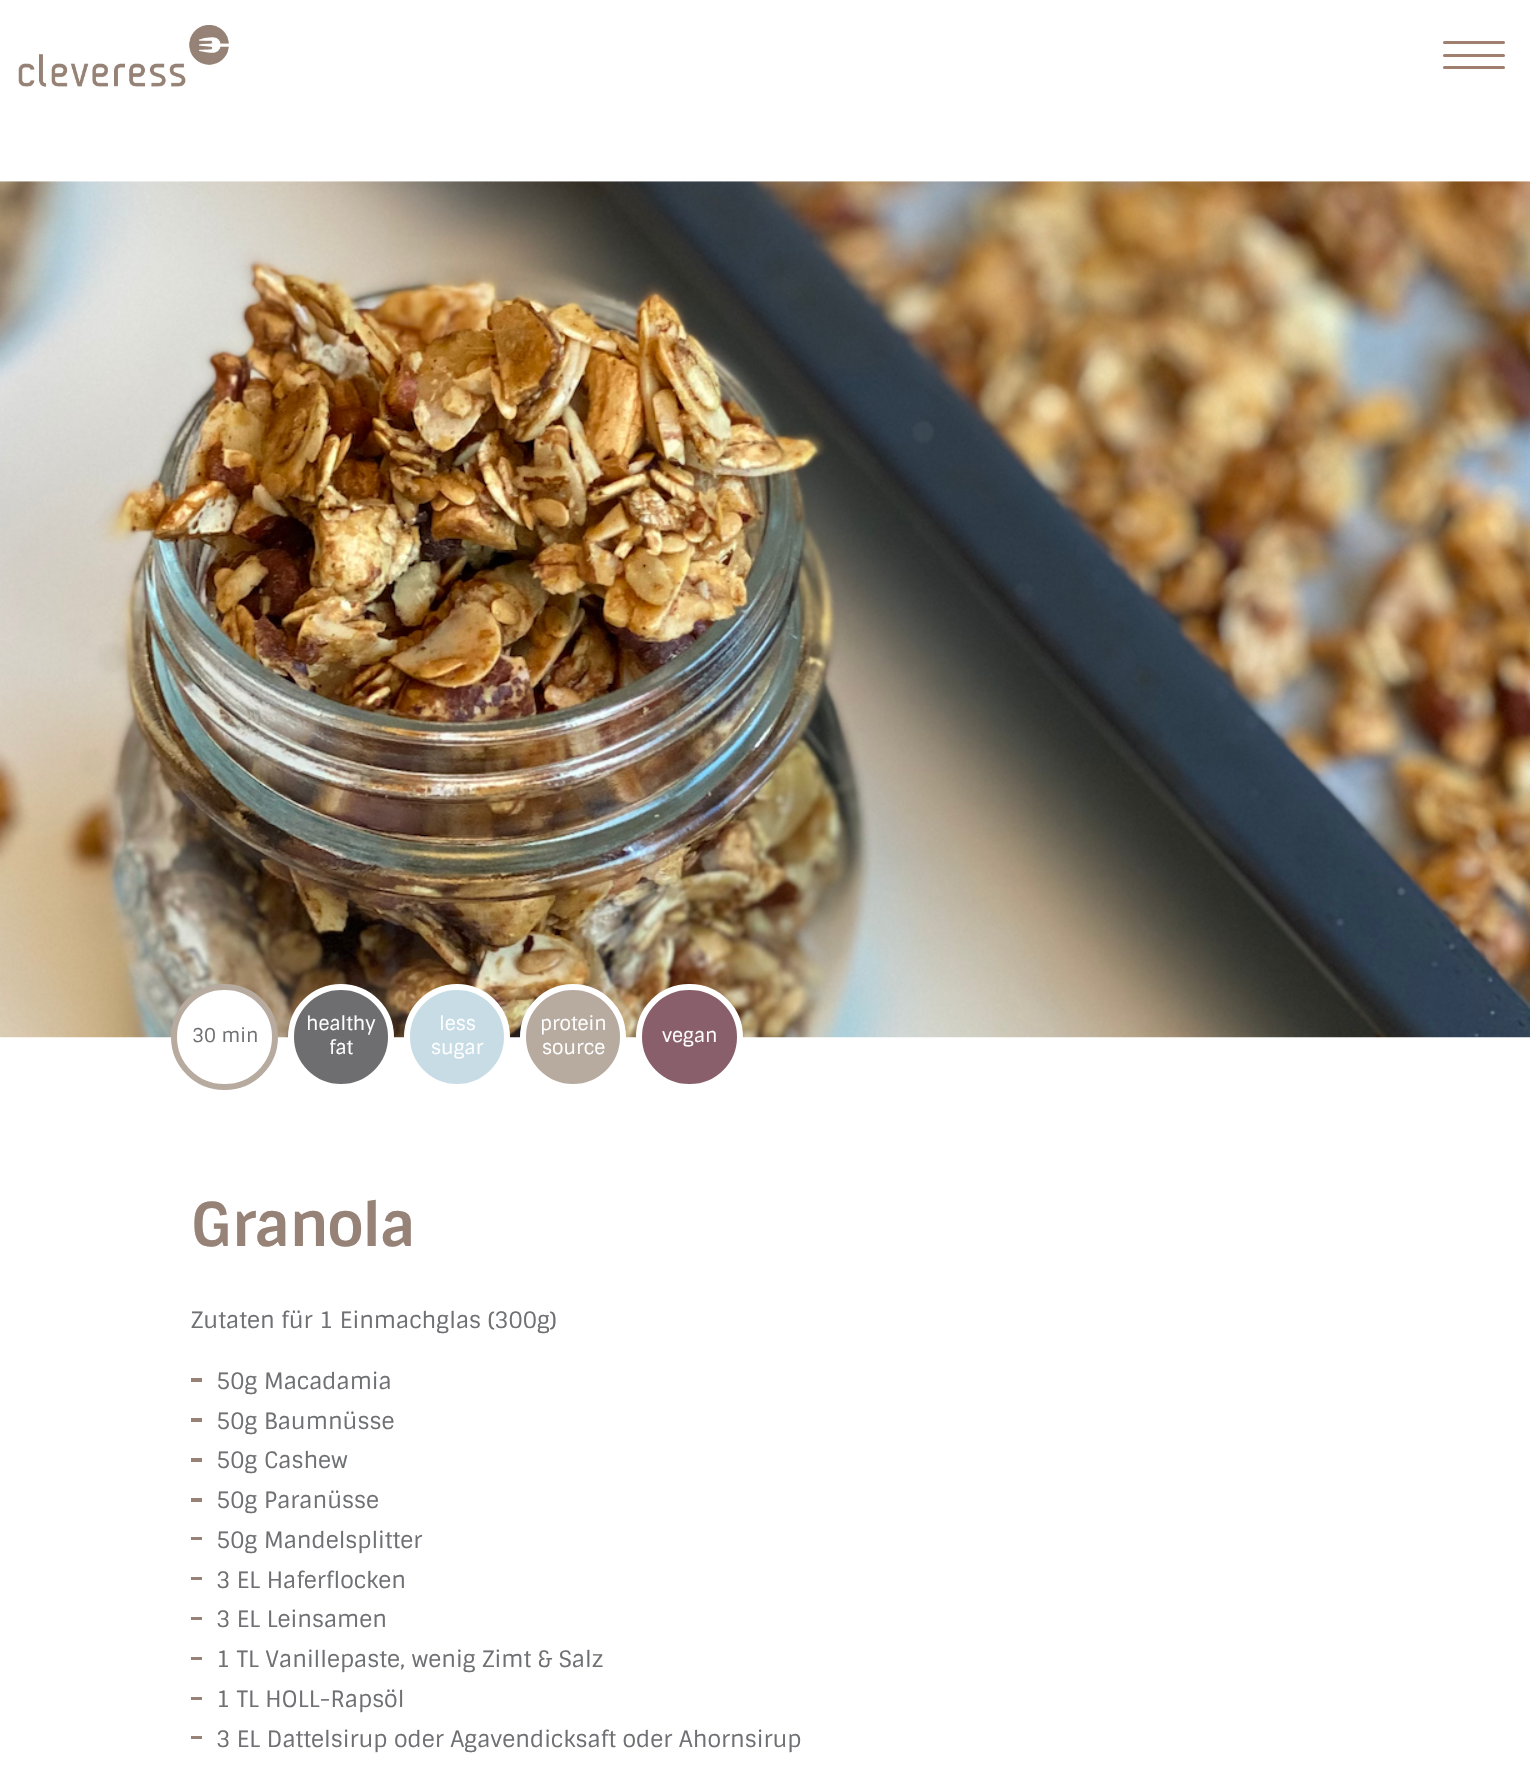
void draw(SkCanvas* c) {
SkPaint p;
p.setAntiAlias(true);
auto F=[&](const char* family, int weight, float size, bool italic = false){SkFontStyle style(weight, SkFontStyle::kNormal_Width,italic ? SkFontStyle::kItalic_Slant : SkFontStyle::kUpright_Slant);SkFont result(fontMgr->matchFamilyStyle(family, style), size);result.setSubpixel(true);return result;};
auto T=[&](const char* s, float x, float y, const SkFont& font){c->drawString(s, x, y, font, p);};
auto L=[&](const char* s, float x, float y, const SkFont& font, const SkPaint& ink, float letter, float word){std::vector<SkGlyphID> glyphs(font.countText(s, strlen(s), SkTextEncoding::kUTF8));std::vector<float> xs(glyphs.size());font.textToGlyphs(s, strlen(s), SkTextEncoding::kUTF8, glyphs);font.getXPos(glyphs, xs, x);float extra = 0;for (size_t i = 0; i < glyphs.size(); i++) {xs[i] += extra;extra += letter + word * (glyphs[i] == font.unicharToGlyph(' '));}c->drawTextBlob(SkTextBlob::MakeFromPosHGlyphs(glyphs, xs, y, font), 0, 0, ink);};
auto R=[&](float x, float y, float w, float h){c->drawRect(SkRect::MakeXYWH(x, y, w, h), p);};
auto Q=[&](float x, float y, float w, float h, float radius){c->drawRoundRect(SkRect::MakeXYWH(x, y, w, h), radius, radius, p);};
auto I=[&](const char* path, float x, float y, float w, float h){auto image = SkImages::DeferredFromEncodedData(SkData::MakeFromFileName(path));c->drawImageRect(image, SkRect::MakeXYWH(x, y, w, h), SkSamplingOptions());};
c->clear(0xffffffff);
I("1.png",18,25,211,62);
p.setColor(0xffa07f6f);
Q(1443,66,62,3,1.5);
Q(1443,41,62,3,1.5);
Q(1443,54,62,3,1.5);
I("2.png",0,181,1530,857);
p.setColor(0xffffffff);
c->drawRoundRect(SkRect::MakeXYWH(174,987,101,100),50,50,p);
p.setStroke(true);
p.setStrokeWidth(6);
p.setColor(0xffb7aa9f);
c->drawRoundRect(SkRect::MakeXYWH(174,987,101,100),50,50,p);
auto f1 = F("Sintony",400,19);
p.setStroke(false);
p.setColor(0xff6f7073);
T("30 min",192,1042,f1);
p.setColor(0xff6e6e70);
c->drawCircle(341,1037,50,p);
p.setStroke(true);
p.setColor(0xffffffff);
c->drawCircle(341,1037,50,p);
p.setStroke(false);
T("healthy",306,1030,f1);
T("fat",329,1054,f1);
p.setColor(0xffc8dce6);
c->drawCircle(457,1037,50,p);
p.setStroke(true);
p.setColor(0xffffffff);
c->drawCircle(457,1037,50,p);
p.setStroke(false);
T("less",439,1030,f1);
T("sugar",431,1054,f1);
p.setColor(0xffb7aa9f);
c->drawCircle(573,1037,50,p);
p.setStroke(true);
p.setColor(0xffffffff);
c->drawCircle(573,1037,50,p);
p.setStroke(false);
T("protein",540,1030,f1);
T("source",542,1054,f1);
p.setColor(0xff895f6b);
c->drawRoundRect(SkRect::MakeXYWH(639,987,101,100),50,50,p);
p.setStroke(true);
p.setColor(0xffffffff);
c->drawRoundRect(SkRect::MakeXYWH(639,987,101,100),50,50,p);
p.setStroke(false);
T("vegan",662,1042,f1);
auto f2 = F("Sintony",700,60);
p.setColor(0xff968276);
L("Granola",191,1246,f2,p,-1.25,0);
auto f3 = F("Sintony",400,22.5);
p.setColor(0xff6f7073);
T("Zutaten für 1 Einmachglas (300g)",191,1328,f3);
p.setColor(0xff968277);
R(191,1378,11,4);
p.setColor(0xff6f7073);
T("50g Macadamia",216,1389,f3);
p.setColor(0xff968277);
R(191,1418,11,4);
p.setColor(0xff6f7073);
T("50g Baumnüsse",216,1429,f3);
p.setColor(0xff968277);
R(191,1458,11,4);
p.setColor(0xff6f7073);
T("50g Cashew",216,1468,f3);
p.setColor(0xff968277);
R(191,1498,11,4);
p.setColor(0xff6f7073);
T("50g Paranüsse",216,1508,f3);
p.setColor(0xff968277);
R(191,1537,11,3);
p.setColor(0xff6f7073);
T("50g Mandelsplitter",216,1548,f3);
p.setColor(0xff968277);
R(191,1577,11,3);
p.setColor(0xff6f7073);
T("3 EL Haferflocken",216,1588,f3);
p.setColor(0xff968277);
R(191,1617,11,3);
p.setColor(0xff6f7073);
T("3 EL Leinsamen",216,1627,f3);
p.setColor(0xff968277);
R(191,1657,11,3);
p.setColor(0xff6f7073);
T("1 TL Vanillepaste, wenig Zimt & Salz",216,1667,f3);
p.setColor(0xff968277);
R(191,1697,11,3);
p.setColor(0xff6f7073);
T("1 TL HOLL-Rapsöl",216,1707,f3);
p.setColor(0xff968277);
R(191,1736,11,3);
p.setColor(0xff6f7073);
T("3 EL Dattelsirup oder Agavendicksaft oder Ahornsirup",216,1747,f3);
}
